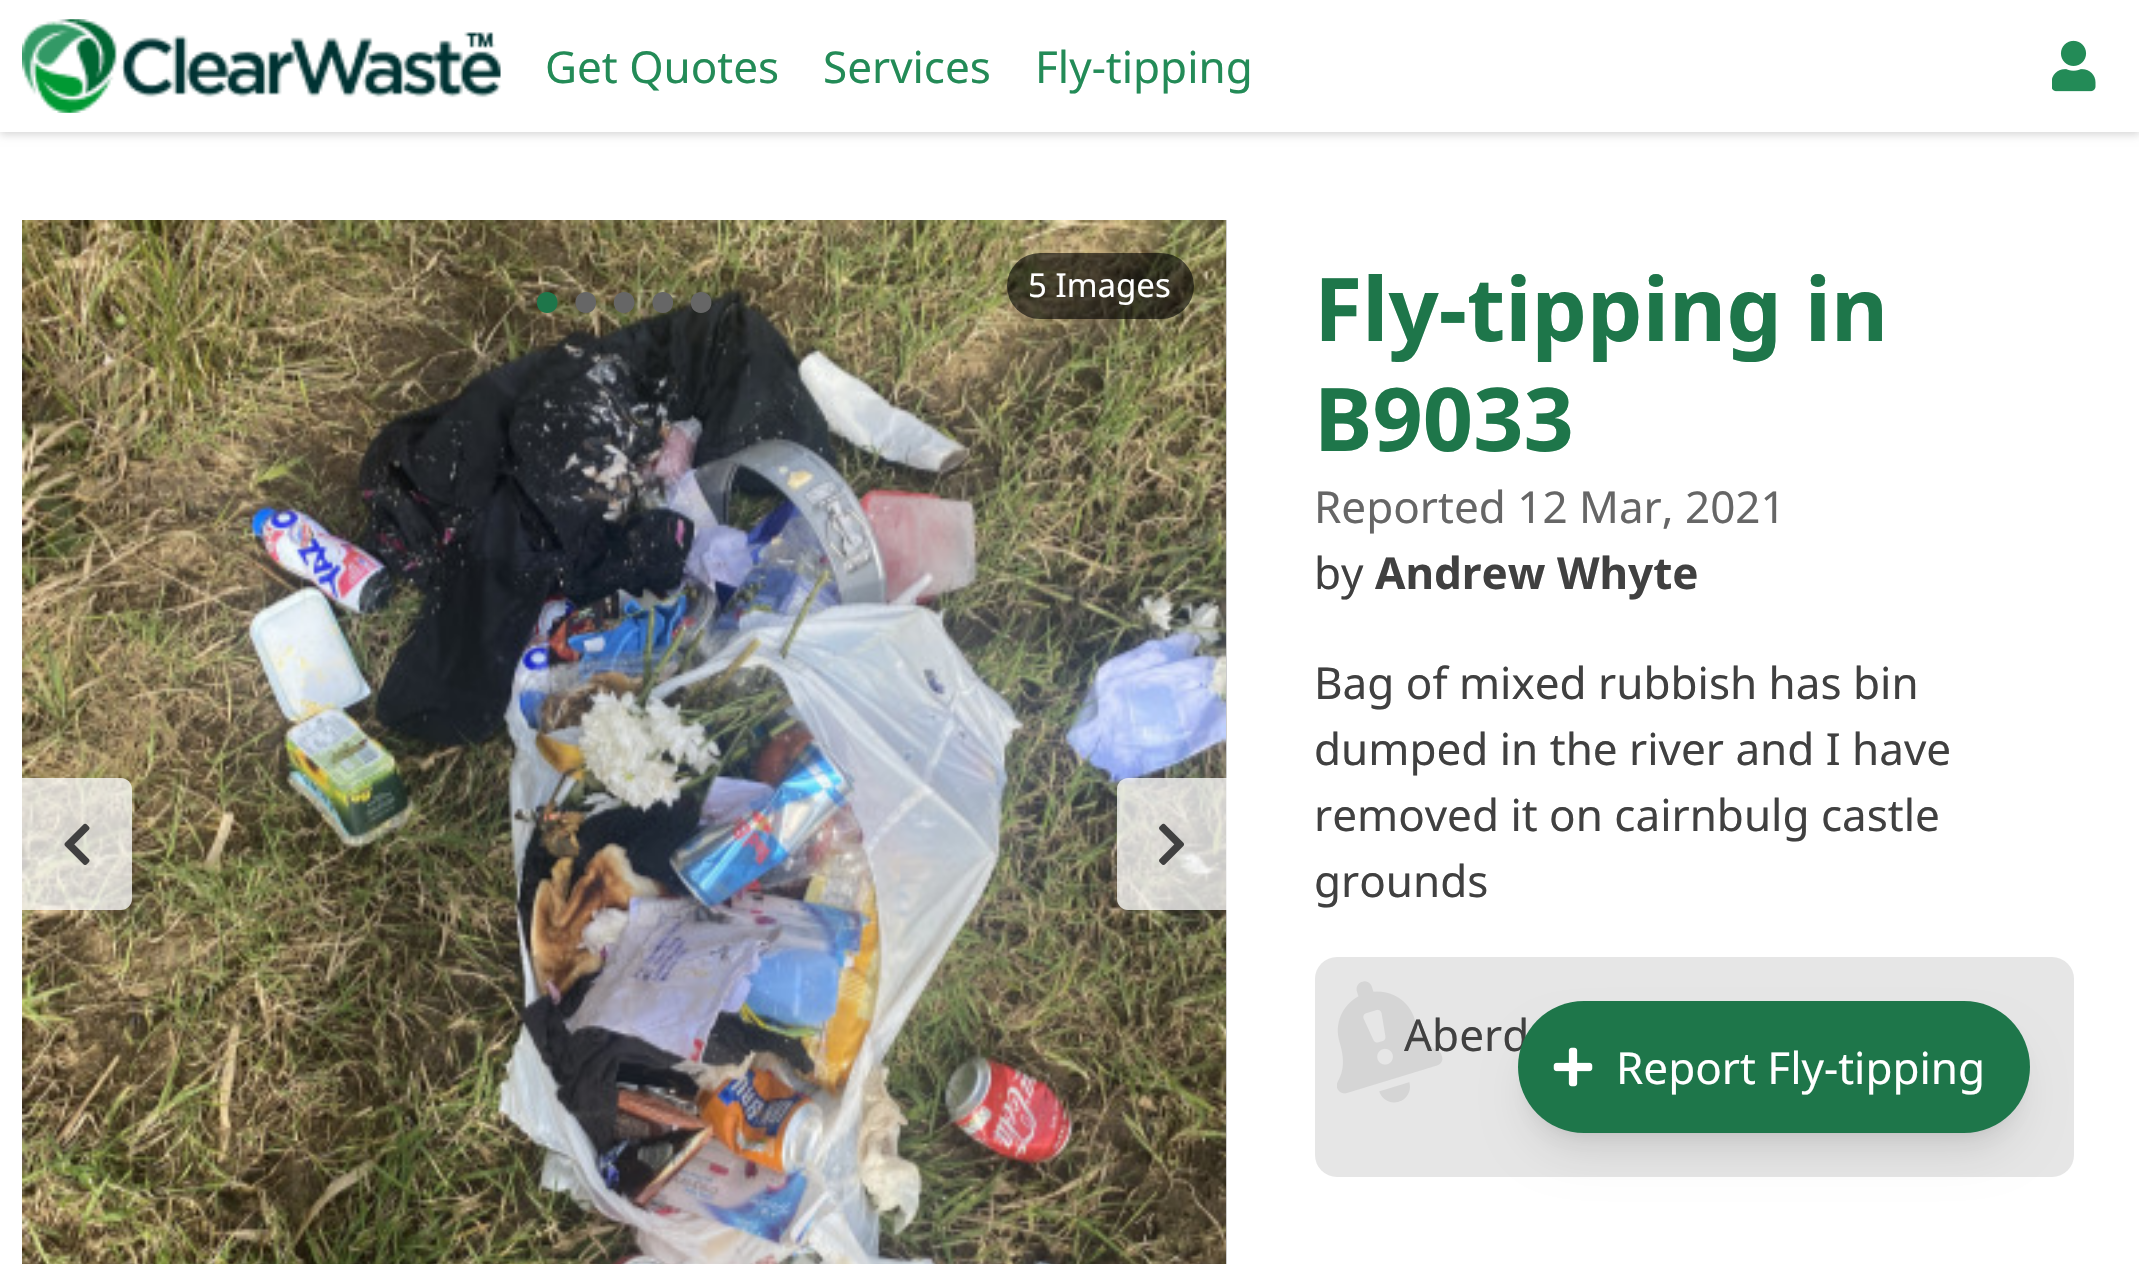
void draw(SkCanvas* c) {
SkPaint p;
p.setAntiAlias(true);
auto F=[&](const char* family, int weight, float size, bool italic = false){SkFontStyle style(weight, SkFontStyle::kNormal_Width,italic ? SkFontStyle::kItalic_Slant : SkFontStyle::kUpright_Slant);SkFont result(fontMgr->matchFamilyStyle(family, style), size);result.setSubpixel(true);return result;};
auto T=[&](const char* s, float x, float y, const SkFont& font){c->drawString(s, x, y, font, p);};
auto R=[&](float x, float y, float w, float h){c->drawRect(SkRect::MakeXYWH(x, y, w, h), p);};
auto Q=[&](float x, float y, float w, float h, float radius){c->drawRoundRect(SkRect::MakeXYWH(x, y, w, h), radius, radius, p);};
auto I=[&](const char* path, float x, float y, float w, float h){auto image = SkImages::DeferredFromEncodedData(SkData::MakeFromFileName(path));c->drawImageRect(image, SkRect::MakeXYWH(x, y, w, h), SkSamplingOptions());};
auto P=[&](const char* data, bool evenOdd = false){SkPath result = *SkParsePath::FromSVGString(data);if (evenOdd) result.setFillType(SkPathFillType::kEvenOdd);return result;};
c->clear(0xffffffff);
p.setColor(0x26000000);
p.setMaskFilter(SkMaskFilter::MakeBlur(kNormal_SkBlurStyle, 4));
c->drawRect(SkRect::MakeXYWH(0,3,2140,132),p);
p.setMaskFilter(nullptr);
p.setColor(0xffffffff);
R(0,0,2139,132);
I("1.png",22,19,479,94);
auto f1 = F("Noto Sans",400,44);
p.setColor(0xff238b57);
T("Get Quotes",545,83,f1);
T("Services",823,83,f1);
T("Fly-tipping",1035,83,f1);
I("2.png",2052,40,44,52);
p.setColor(0xffcccccc);
R(1226,220,1,1044);
I("3.png",22,220,1204,1044);
p.setColor(0xbfffffff);
c->drawPath(P("M22 778h99c6 0 11 5 11 11v110c0 6-5 11-11 11h-99z"),p);
I("4.png",64,823,26,42);
c->drawPath(P("M1128 778h99v132h-99c-6 0-11-5-11-11v-110c0-6 5-11 11-11z"),p);
I("5.png",1159,823,26,42);
p.setColor(0xff1e764a);
c->drawPath(P("M547 292c14 0 14 21 0 21c-13.5 0-13.5-21 0-21z"),p);
p.setColor(0xff666666);
c->drawPath(P("M586 292c13.5 0 13.5 21 0 21c-14 0-14-21 0-21zm38 0c14 0 14 21 0 21c-13.5 0-13.5-21 0-21z"),p);
c->drawPath(P("M663 292c13.5 0 13.5 21 0 21c-14 0-14-21 0-21zm38 0c14 0 14 21 0 21c-13.5 0-13.5-21 0-21z"),p);
p.setColor(0x99000000);
Q(1007,253,187,66,33);
auto f2 = F("Noto Sans",400,33);
p.setColor(0xffffffff);
T("5 Images",1028,297,f2);
auto f3 = F("Noto Sans",700,88);
p.setColor(0xff1e764a);
T("Fly-tipping in",1314,341,f3);
T("B9033",1314,451,f3);
p.setColor(0xff666666);
T("Reported 12 Mar, 2021",1314,523,f1);
p.setColor(0xff404040);
T("by",1314,589,f1);
auto f4 = F("Noto Sans",700,44);
T("Andrew Whyte",1375,589,f4);
T("Bag of mixed rubbish has bin",1314,699,f1);
T("dumped in the river and I have",1314,765,f1);
T("removed it on cairnbulg castle",1314,831,f1);
T("grounds",1314,897,f1);
p.setColor(0xffe6e6e6);
Q(1315,957,759,220,22);
p.setColor(0xff404040);
T("Aberd",1404,1051,f1);
I("6.png",1337,981,106,122);
p.setColor(0x1a000000);
p.setMaskFilter(SkMaskFilter::MakeBlur(kNormal_SkBlurStyle, 8));
c->drawRoundRect(SkRect::MakeXYWH(1529,1023,490,110),55,55,p);
p.setMaskFilter(nullptr);
p.setMaskFilter(SkMaskFilter::MakeBlur(kNormal_SkBlurStyle, 20.5));
c->drawRoundRect(SkRect::MakeXYWH(1526,1037,495,115),57.5,57.5,p);
p.setMaskFilter(nullptr);
p.setColor(0xff1e764a);
Q(1518,1001,512,132,66);
I("7.png",1553,1047,40,40);
p.setColor(0xffffffff);
T("Report Fly-tipping",1616,1084,f1);
}
